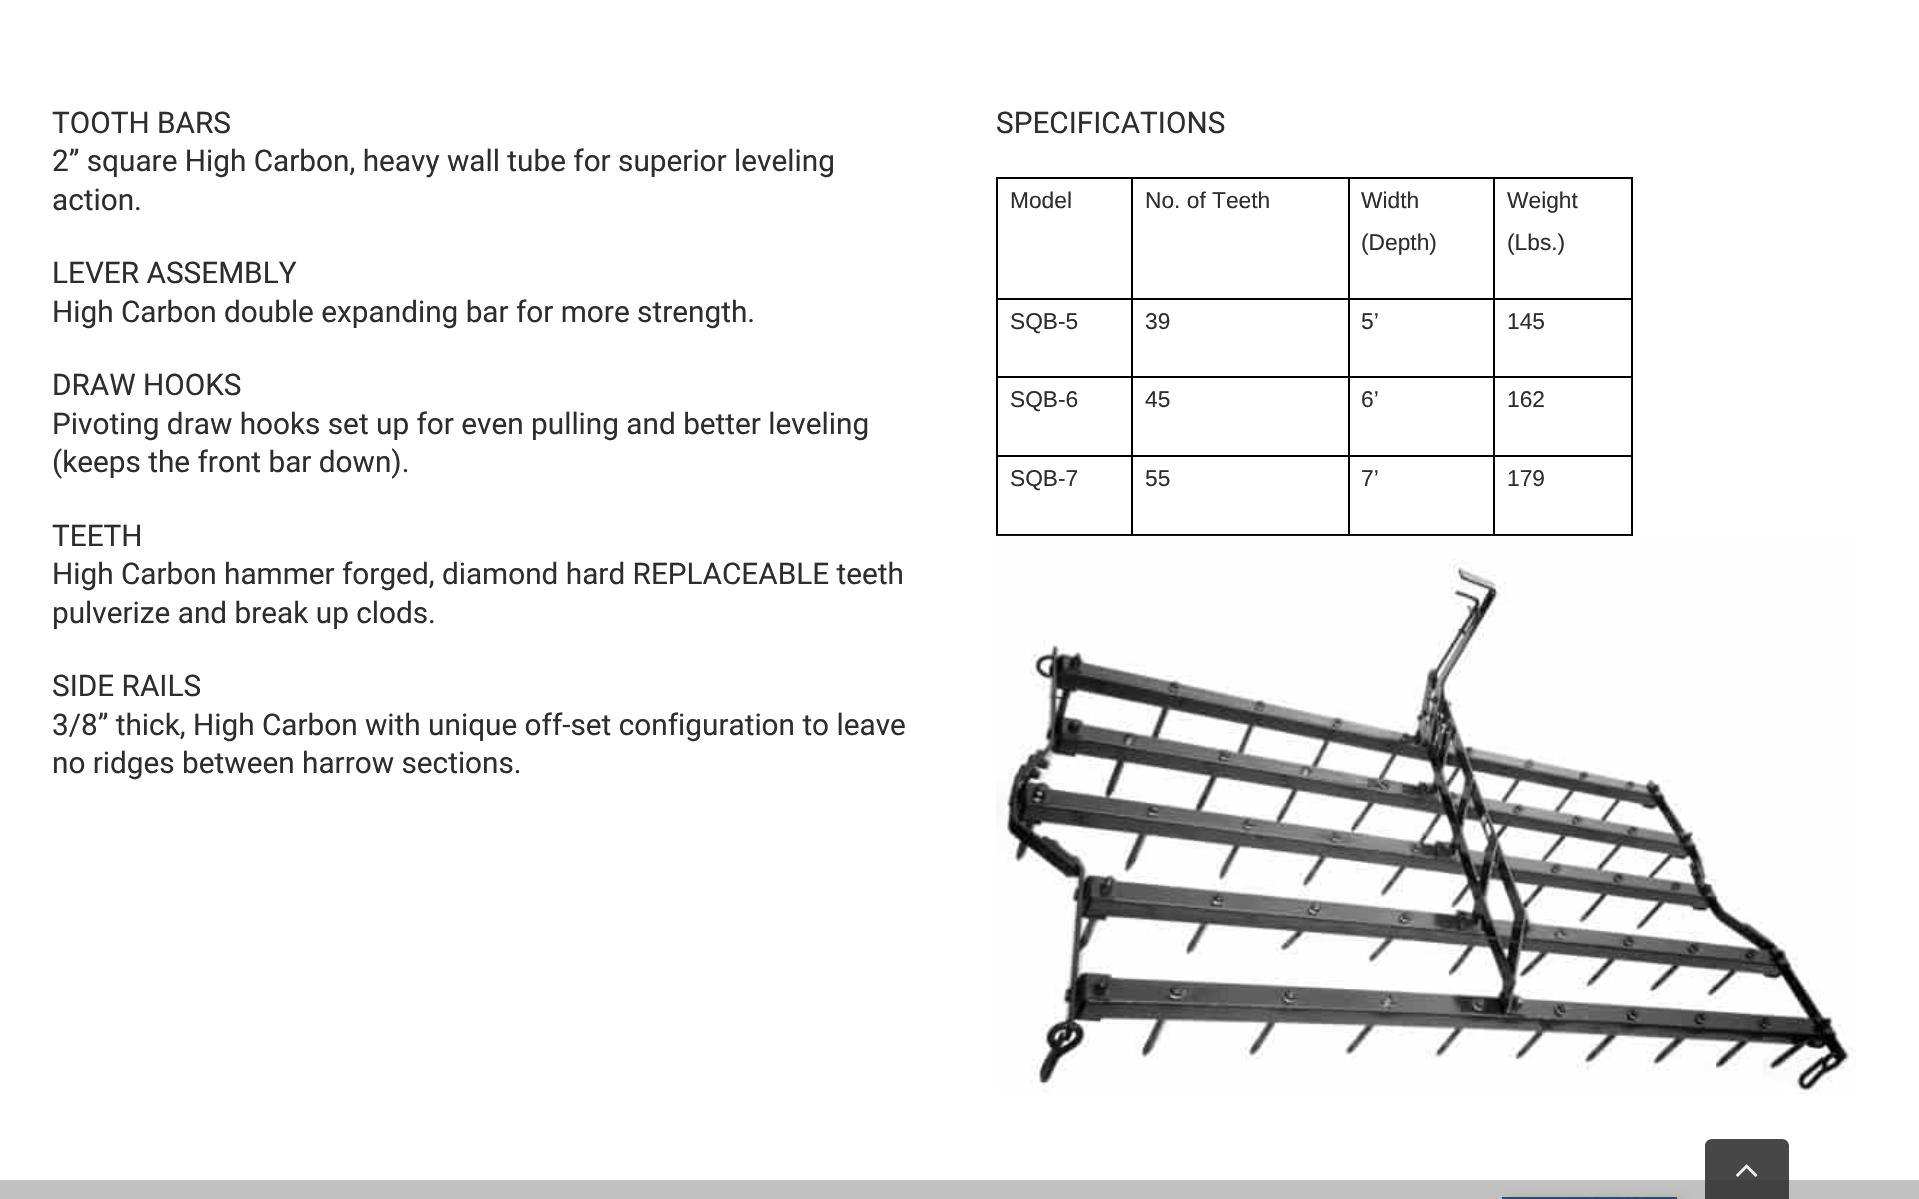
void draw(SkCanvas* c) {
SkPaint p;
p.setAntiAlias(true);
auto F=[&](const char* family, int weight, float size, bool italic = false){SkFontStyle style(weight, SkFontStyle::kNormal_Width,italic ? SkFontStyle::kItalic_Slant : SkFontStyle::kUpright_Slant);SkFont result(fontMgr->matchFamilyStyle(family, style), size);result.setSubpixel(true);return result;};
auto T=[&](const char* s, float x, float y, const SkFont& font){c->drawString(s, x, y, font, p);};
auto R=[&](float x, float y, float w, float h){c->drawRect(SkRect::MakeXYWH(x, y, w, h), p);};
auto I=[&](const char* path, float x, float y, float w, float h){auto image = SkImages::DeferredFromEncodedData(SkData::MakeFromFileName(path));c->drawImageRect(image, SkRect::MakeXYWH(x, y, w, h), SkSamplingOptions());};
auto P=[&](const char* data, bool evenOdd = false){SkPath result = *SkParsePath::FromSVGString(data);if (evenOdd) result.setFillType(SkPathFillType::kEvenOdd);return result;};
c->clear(0xffffffff);
auto f1 = F("Roboto",400,29.75);
p.setColor(0xff2d2d2d);
T("TOOTH BARS",52,133,f1);
T("2” square High Carbon, heavy wall tube for superior leveling",52,171,f1);
T("action.",52,210,f1);
T("LEVER ASSEMBLY",52,283,f1);
T("High Carbon double expanding bar for more strength.",52,322,f1);
T("DRAW HOOKS",52,395,f1);
T("Pivoting draw hooks set up for even pulling and better leveling",52,434,f1);
T("(keeps the front bar down).",52,472,f1);
T("TEETH",52,546,f1);
T("High Carbon hammer forged, diamond hard REPLACEABLE teeth",52,584,f1);
T("pulverize and break up clods.",52,623,f1);
T("SIDE RAILS",52,696,f1);
T("3/8” thick, High Carbon with unique off-set configuration to leave",52,735,f1);
T("no ridges between harrow sections.",52,773,f1);
T("SPECIFICATIONS",996,133,f1);
p.setColor(0xff000000);
R(996,177,637,2);
R(1631,298,2,238);
R(1631,177,2,122);
R(1493,534,140,2);
R(1493,455,2,81);
R(1493,455,140,2);
R(1493,376,2,81);
R(1493,376,140,2);
R(1493,298,2,80);
R(1493,298,140,2);
R(1493,177,2,122);
R(1348,534,147,2);
R(1348,455,2,81);
R(1348,455,147,2);
R(1348,376,2,81);
R(1348,376,147,2);
R(1348,298,2,80);
R(1348,298,147,2);
R(1348,177,2,122);
R(1131,534,218,2);
R(1131,455,2,81);
R(1131,455,218,2);
R(1131,376,2,81);
R(1131,376,218,2);
R(1131,298,2,80);
R(1131,298,218,2);
R(1131,177,2,122);
R(996,534,136,2);
R(996,455,2,81);
R(996,455,136,2);
R(996,376,2,81);
R(996,376,136,2);
R(996,298,2,80);
R(996,298,136,2);
R(996,177,2,122);
auto f2 = F("Liberation Sans",400,22.75);
p.setColor(0xff2d2d2d);
T("Model",1010,208,f2);
T("No. of Teeth",1145,208,f2);
T("Width",1361,208,f2);
T("(Depth)",1361,250,f2);
T("Weight",1507,208,f2);
T("(Lbs.)",1507,250,f2);
T("SQB-5",1010,329,f2);
T("39",1145,329,f2);
T("5’",1361,329,f2);
T("145",1507,329,f2);
T("SQB-6",1010,407,f2);
T("45",1145,407,f2);
T("6’",1361,407,f2);
T("162",1507,407,f2);
T("SQB-7",1010,486,f2);
T("55",1145,486,f2);
T("7’",1361,486,f2);
T("179",1507,486,f2);
I("1.png",996,535,860,559);
p.setColor(0xffc1c1c1);
R(0,1180,1919,19);
p.setColor(0x4d000000);
p.setMaskFilter(SkMaskFilter::MakeBlur(kNormal_SkBlurStyle, 6));
c->drawRect(SkRect::MakeXYWH(1507,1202,175,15),p);
p.setMaskFilter(nullptr);
I("2.png",1502,1197,175,2);
p.setColor(0xe6333333);
c->drawPath(P("M1712 1139h70c4 0 7 3 7 7v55h-84v-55c0-4 3-7 7-7z"),p);
I("3.png",1736,1164,22,13);
}
